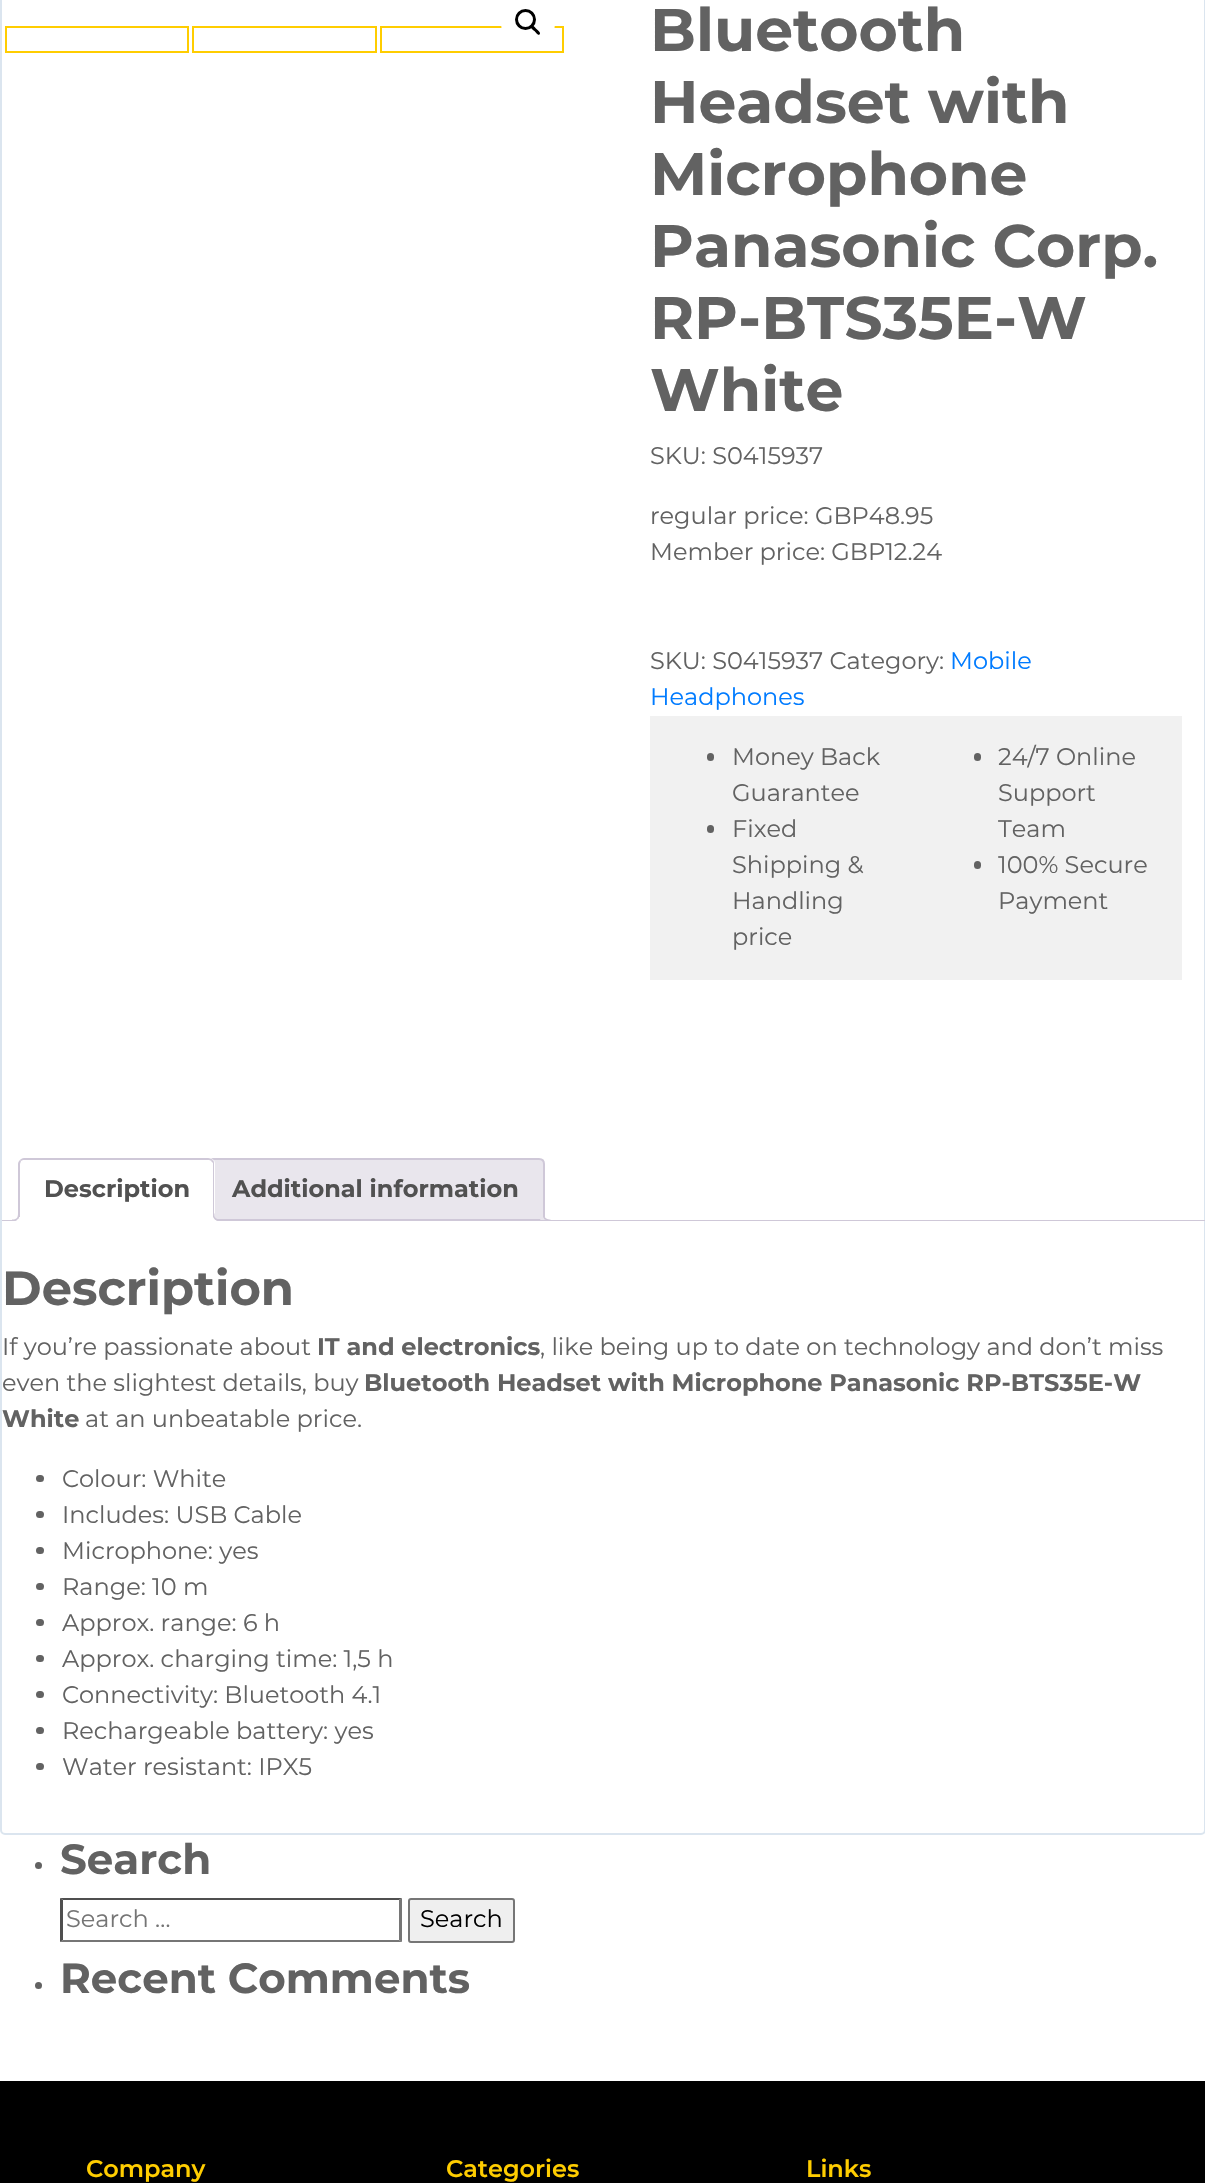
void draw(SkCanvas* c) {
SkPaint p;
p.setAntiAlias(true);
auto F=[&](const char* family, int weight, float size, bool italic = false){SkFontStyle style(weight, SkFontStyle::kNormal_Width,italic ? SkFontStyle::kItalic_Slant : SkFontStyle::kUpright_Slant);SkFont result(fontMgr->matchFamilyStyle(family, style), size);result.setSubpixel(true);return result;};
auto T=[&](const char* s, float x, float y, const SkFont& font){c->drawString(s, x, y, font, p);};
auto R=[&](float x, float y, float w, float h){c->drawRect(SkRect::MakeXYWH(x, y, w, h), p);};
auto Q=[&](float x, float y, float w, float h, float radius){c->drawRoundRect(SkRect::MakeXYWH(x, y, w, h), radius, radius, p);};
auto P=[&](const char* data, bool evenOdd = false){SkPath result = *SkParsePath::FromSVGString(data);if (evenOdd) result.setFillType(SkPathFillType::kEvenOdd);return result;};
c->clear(0xffffffff);
p.setStroke(true);
p.setStrokeWidth(2);
p.setColor(0xffdbe5ef);
c->drawRoundRect(SkRect::MakeXYWH(1,-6,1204,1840),4,4,p);
p.setColor(0xffffcd00);
c->drawRect(SkRect::MakeXYWH(381,27,182,25),p);
p.setStroke(false);
p.setColor(0xffffffff);
c->drawCircle(528,23,27,p);
p.setStroke(true);
p.setStrokeWidth(3);
p.setColor(0xff000000);
c->drawCircle(525.5,19.5,9,p);
p.setStroke(false);
c->drawPath(P("M531 26c2-2 4.5 2 5.5 3c1 1 5 3.5 3 5.5c-1.5 1.5-4-2.5-5-3.5c-1-.5-5-3.5-3.5-5z"),p);
p.setStroke(true);
p.setStrokeWidth(2);
p.setColor(0xffffcd00);
c->drawRect(SkRect::MakeXYWH(6,27,182,25),p);
c->drawRect(SkRect::MakeXYWH(193,27,183,25),p);
auto f1 = F("Montserrat",700,60);
p.setStroke(false);
p.setColor(0xff626262);
T("Bluetooth",650,51,f1);
T("Headset with",650,123,f1);
T("Microphone",650,195,f1);
T("Panasonic Corp.",650,267,f1);
T("RP-BTS35E-W",650,339,f1);
T("White",650,411,f1);
auto f2 = F("Montserrat",400,24);
T("SKU: S0415937",650,464,f2);
T("regular price: GBP48.95",650,524,f2);
T("Member price: GBP12.24",650,560,f2);
T("SKU: S0415937 Category:",650,669,f2);
p.setColor(0xff007bff);
T("Mobile",950,669,f2);
T("Headphones",650,705,f2);
p.setColor(0xfff1f1f1);
R(650,716,532,264);
p.setColor(0xff626262);
Q(707,753,7,8,3.5);
T("Money Back",732,765,f2);
T("Guarantee",732,801,f2);
Q(707,825,7,8,3.5);
T("Fixed",732,837,f2);
T("Shipping &",732,873,f2);
T("Handling",732,909,f2);
T("price",732,945,f2);
Q(974,753,7,8,3.5);
T("24/7 Online",998,765,f2);
T("Support",998,801,f2);
T("Team",998,837,f2);
Q(974,861,7,8,3.5);
T("100% Secure",998,873,f2);
T("Payment",998,909,f2);
p.setColor(0xffe9e6ed);
c->drawPath(P("M213 1159h326c3 0 5 2 5 5v56h-336v-56c0-3 2-5 5-5z"),p);
p.setStroke(true);
p.setColor(0xffcfc8d8);
c->drawPath(P("M213 1159h326c3 0 5 2 5 5v56h-336v-56c0-3 2-5 5-5z"),p);
c->save();
c->clipRect(SkRect::MakeXYWH(2,1158,1203,63));
p.setStroke(false);
p.setColor(0xffe9e6ed);
c->drawPath(P("M540 1217c0 5.5 3 7 8 7v-3c-2-.5-4-2-4.5-4z"),p);
c->restore();
p.setColor(0xffcfc8d8);
c->drawPath(P("M543 1213.5h7.5v7.5c-4 0-7.5-1.5-7.5-6zm1.5 0h6v6c-3 0-6-1-6-4.5z",true),p);
R(2,1220,1203,1);
p.setColor(0xffffffff);
c->drawPath(P("M24 1158h185c3.5 0 6 2.5 6 6v57h-197v-57c0-3.5 2.5-6 6-6z"),p);
p.setColor(0xffcfc8d8);
c->drawPath(P("M24 1158c-2 0-3 1-4 2l1 1c1-1 2-1 3-1h184c1 0 3 0 3 1l2-1c-1-1-3-2-5-2z"),p);
c->drawPath(P("M213 1160c1 1 1 3 1 4v56h-1v-57l-2-2z"),p);
c->drawPath(P("M18 1221l2-2v-55l1-3l-1-1c-1 1-2 2-2 4z"),p);
auto f3 = F("Montserrat",700,24);
p.setColor(0xff515151);
T("Description",44,1197,f3);
c->save();
c->clipRect(SkRect::MakeXYWH(2,1158,1203,63));
p.setColor(0xffffffff);
c->drawPath(P("M15 1221v3c5 0 8-1.5 8-7h-4c-.5 2-2 3.5-4 4z"),p);
c->restore();
p.setColor(0xffcfc8d8);
c->drawPath(P("M12 1213.5h7.5c0 5.5-2 7.5-7.5 7.5zm0 0h6c0 4.5-1.5 6-6 6z",true),p);
c->save();
c->clipRect(SkRect::MakeXYWH(2,1158,1203,63));
p.setColor(0xffffffff);
c->drawPath(P("M210 1217c0 5.5 3 7 8 7v-3c-2-.5-4-2-4.5-4z"),p);
c->restore();
p.setColor(0xffcfc8d8);
c->drawPath(P("M213 1213.5h7.5v7.5c-4 0-7.5-1.5-7.5-6zm1.5 0h6v6c-3 0-6-1-6-4.5z",true),p);
p.setColor(0xff515151);
T("Additional information",232,1197,f3);
auto f4 = F("Montserrat",700,48);
p.setColor(0xff626262);
T("Description",2,1305,f4);
T("If you’re passionate about",2,1355,f2);
T("IT and electronics",317,1355,f3);
T(", like being up to date on technology and don’t miss",540,1355,f2);
T("even the slightest details, buy",2,1391,f2);
T("Bluetooth Headset with Microphone Panasonic RP-BTS35E-W",364,1391,f3);
T("White",2,1427,f3);
T("at an unbeatable price.",85,1427,f2);
Q(36,1475,8,7,3.5);
T("Colour: White",62,1487,f2);
Q(36,1511,8,7,3.5);
T("Includes: USB Cable",62,1523,f2);
Q(36,1547,8,7,3.5);
T("Microphone: yes",62,1559,f2);
Q(36,1583,8,7,3.5);
T("Range: 10 m",62,1595,f2);
Q(36,1619,8,7,3.5);
T("Approx. range: 6 h",62,1631,f2);
Q(36,1655,8,7,3.5);
T("Approx. charging time: 1,5 h",62,1667,f2);
Q(36,1691,8,7,3.5);
T("Connectivity: Bluetooth 4.1",62,1703,f2);
Q(36,1727,8,7,3.5);
T("Rechargeable battery: yes",62,1739,f2);
Q(36,1763,8,7,3.5);
T("Water resistant: IPX5",62,1775,f2);
c->drawCircle(38.5,1865.5,3.5,p);
auto f5 = F("Montserrat",700,42);
T("Search",60,1874,f5);
p.setColor(0xff4f4f4f);
c->drawPath(P("M60 1898h342l-3 2h-336z"),p);
p.setColor(0xff767676);
c->drawPath(P("M402 1898v44l-3-2v-40z"),p);
c->drawPath(P("M402 1942h-342l3-2h336z"),p);
p.setColor(0xff4f4f4f);
c->drawPath(P("M60 1942v-44l3 2v40z"),p);
p.setColor(0xff757575);
T("Search …",66,1927,f2);
p.setColor(0xffefefef);
c->drawRoundRect(SkRect::MakeXYWH(409,1899,105,43),2,2,p);
p.setStroke(true);
p.setColor(0xff767676);
c->drawRoundRect(SkRect::MakeXYWH(409,1899,105,43),2,2,p);
p.setStroke(false);
p.setColor(0xff000000);
T("Search",420,1927,f2);
p.setColor(0xff626262);
c->drawCircle(38.5,1985.5,3.5,p);
T("Recent Comments",60,1993,f5);
p.setColor(0xff000000);
R(0,2081,1205,102);
auto f6 = F("Montserrat",600,24);
p.setColor(0xffffcd00);
T("Company",86,2177,f6);
T("Categories",446,2177,f6);
T("Links",806,2177,f6);
}
